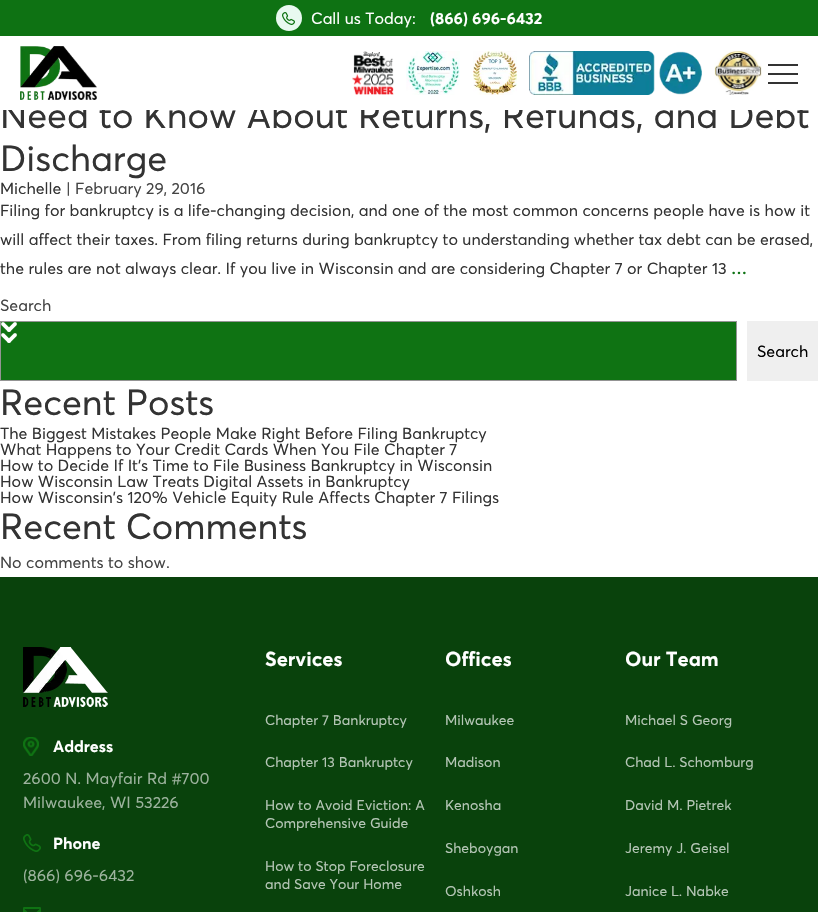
void draw(SkCanvas* c) {
SkPaint p;
p.setAntiAlias(true);
auto F=[&](const char* family, int weight, float size, bool italic = false){SkFontStyle style(weight, SkFontStyle::kNormal_Width,italic ? SkFontStyle::kItalic_Slant : SkFontStyle::kUpright_Slant);SkFont result(fontMgr->matchFamilyStyle(family, style), size);result.setSubpixel(true);return result;};
auto T=[&](const char* s, float x, float y, const SkFont& font){c->drawString(s, x, y, font, p);};
auto R=[&](float x, float y, float w, float h){c->drawRect(SkRect::MakeXYWH(x, y, w, h), p);};
auto I=[&](const char* path, float x, float y, float w, float h){auto image = SkImages::DeferredFromEncodedData(SkData::MakeFromFileName(path));c->drawImageRect(image, SkRect::MakeXYWH(x, y, w, h), SkSamplingOptions());};
c->clear(0xffffffff);
auto f1 = F("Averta",400,36);
p.setColor(0xff333333);
T("Need to Know About Returns, Refunds, and Debt",0,128,f1);
p.setColor(0xffffffff);
R(3,101,800,9);
p.setColor(0xff0e7213);
R(0,0,818,36);
p.setColor(0xffe8f9f0);
c->drawCircle(289,18,13,p);
I("1.png",282,12,13,13);
auto f2 = F("Averta",400,16);
p.setColor(0xffffffff);
T("Call us Today:",311,24,f2);
auto f3 = F("Averta",700,16);
T("(866) 696-6432",430,24,f3);
I("2.png",20,46,77,54);
I("3.png",352,51,42,44);
I("4.png",406,51,54,44);
I("5.png",473,51,44,44);
I("6.png",529,51,173,44);
I("7.png",714,51,48,44);
p.setColor(0xff333333);
R(768,64,30,2);
R(768,73,30,2);
R(768,82,30,2);
T("Discharge",0,171,f1);
T("Michelle",0,194,f2);
p.setColor(0xff444444);
T("| February 29, 2016",66,194,f2);
p.setColor(0xff333333);
T("Filing for bankruptcy is a life-changing decision, and one of the most common concerns people have is how it",0,216,f2);
T("will affect their taxes. From filing returns during bankruptcy to understanding whether tax debt can be erased,",0,245,f2);
T("the rules are not always clear. If you live in Wisconsin and are considering Chapter 7 or Chapter 13",0,274,f2);
auto f4 = F("Averta",600,16);
p.setColor(0xff0d7213);
T("…",731,274,f4);
p.setColor(0xff444444);
T("Search",0,311,f2);
p.setColor(0xff0f7313);
R(1,322,735,58);
I("8.png",1,322,16,21);
p.setStroke(true);
p.setStrokeWidth(1);
p.setColor(0xff949494);
c->drawRect(SkRect::MakeXYWH(.5,321.5,736,59),p);
p.setStroke(false);
p.setColor(0xffefefef);
R(747,321,71,60);
p.setColor(0xff000000);
T("Search",757,357,f2);
p.setColor(0xff333333);
T("Recent Posts",0,415,f1);
T("The Biggest Mistakes People Make Right Before Filing Bankruptcy",0,439,f2);
T("What Happens to Your Credit Cards When You File Chapter 7",0,455,f2);
T("How to Decide If It’s Time to File Business Bankruptcy in Wisconsin",0,471,f2);
T("How Wisconsin Law Treats Digital Assets in Bankruptcy",0,487,f2);
T("How Wisconsin’s 120% Vehicle Equity Rule Affects Chapter 7 Filings",0,503,f2);
T("Recent Comments",0,539,f1);
p.setColor(0xff444444);
T("No comments to show.",0,568,f2);
p.setColor(0xff09420c);
R(0,577,818,335);
I("9.png",23,647,85,60);
I("10.png",23,737,16,19);
p.setColor(0xffffffff);
T("Address",53,752,f3);
p.setColor(0xff9db39e);
T("2600 N. Mayfair Rd #700",23,784,f2);
T("Milwaukee, WI 53226",23,808,f2);
I("11.png",23,834,18,18);
p.setColor(0xffffffff);
T("Phone",53,849,f3);
p.setColor(0xff9db39e);
T("(866) 696-6432",23,881,f2);
I("12.png",23,907,18,5);
auto f5 = F("Averta",700,20);
p.setColor(0xffffffff);
T("Services",265,666,f5);
auto f6 = F("Averta",400,14);
p.setColor(0xffb5c6b6);
T("Chapter 7 Bankruptcy",265,725,f6);
T("Chapter 13 Bankruptcy",265,767,f6);
T("How to Avoid Eviction: A",265,810,f6);
T("Comprehensive Guide",265,828,f6);
T("How to Stop Foreclosure",265,871,f6);
T("and Save Your Home",265,889,f6);
p.setColor(0xffffffff);
T("Offices",445,666,f5);
p.setColor(0xffb5c6b6);
T("Milwaukee",445,725,f6);
T("Madison",445,767,f6);
T("Kenosha",445,810,f6);
T("Sheboygan",445,853,f6);
T("Oshkosh",445,896,f6);
p.setColor(0xffffffff);
T("Our Team",625,666,f5);
p.setColor(0xffb5c6b6);
T("Michael S Georg",625,725,f6);
T("Chad L. Schomburg",625,767,f6);
T("David M. Pietrek",625,810,f6);
T("Jeremy J. Geisel",625,853,f6);
T("Janice L. Nabke",625,896,f6);
}
